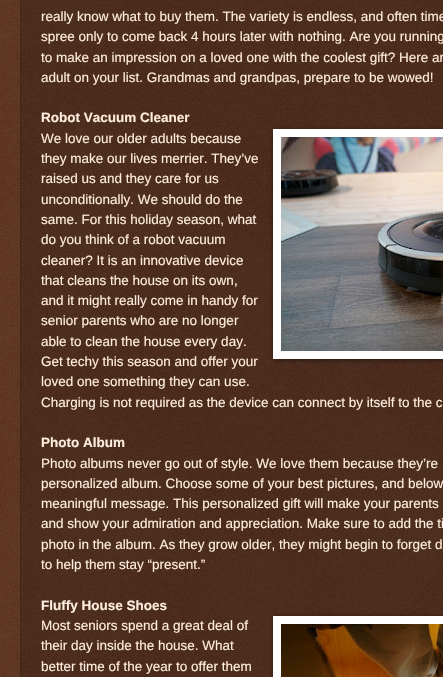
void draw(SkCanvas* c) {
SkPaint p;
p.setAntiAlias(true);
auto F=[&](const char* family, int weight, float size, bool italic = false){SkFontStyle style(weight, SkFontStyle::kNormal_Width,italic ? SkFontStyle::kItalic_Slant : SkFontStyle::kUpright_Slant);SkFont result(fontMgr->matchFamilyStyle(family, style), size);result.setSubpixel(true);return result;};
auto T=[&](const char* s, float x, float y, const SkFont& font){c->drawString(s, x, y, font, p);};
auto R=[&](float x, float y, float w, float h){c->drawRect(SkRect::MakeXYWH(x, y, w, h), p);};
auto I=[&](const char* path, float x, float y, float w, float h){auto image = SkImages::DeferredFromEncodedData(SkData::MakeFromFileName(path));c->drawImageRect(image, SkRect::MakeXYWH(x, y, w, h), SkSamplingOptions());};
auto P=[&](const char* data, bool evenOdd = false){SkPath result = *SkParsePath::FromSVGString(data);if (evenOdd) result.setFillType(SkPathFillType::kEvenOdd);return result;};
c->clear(0xff441500);
p.setColor(0xff361100);
R(20,0,423,677);
I("1.png",0,0,443,677);
p.setStroke(true);
p.setStrokeWidth(1);
p.setColor(0xff332211);
p.setPathEffect(SkDashPathEffect::Make({{1,1}}, 0));
c->drawPath(P("M20.5-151v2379"),p);
p.setPathEffect(nullptr);
auto f1 = F("Liberation Sans",400,13.5);
p.setStroke(false);
p.setColor(0xffffeedd);
T("really know what to buy them. The variety is endless, and often time",41,21,f1);
T("spree only to come back 4 hours later with nothing. Are you running",41,41,f1);
T("to make an impression on a loved one with the coolest gift? Here ar",41,62,f1);
T("adult on your list. Grandmas and grandpas, prepare to be wowed!",41,82,f1);
auto f2 = F("Liberation Sans",700,13.5);
T("Robot Vacuum Cleaner",41,122,f2);
T("We love our older adults because",41,143,f1);
p.setColor(0x80000000);
p.setMaskFilter(SkMaskFilter::MakeBlur(kNormal_SkBlurStyle, 2.5));
c->drawRect(SkRect::MakeXYWH(274,130,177,230),p);
p.setMaskFilter(nullptr);
p.setColor(0xffffffff);
R(273,129,170,230);
I("2.png",281,137,162,214);
p.setColor(0xffffeedd);
T("they make our lives merrier. They’ve",41,163,f1);
T("raised us and they care for us",41,183,f1);
T("unconditionally. We should do the",41,204,f1);
T("same. For this holiday season, what",41,224,f1);
T("do you think of a robot vacuum",41,244,f1);
T("cleaner? It is an innovative device",41,265,f1);
T("that cleans the house on its own,",41,285,f1);
T("and it might really come in handy for",41,305,f1);
T("senior parents who are no longer",41,325,f1);
T("able to clean the house every day.",41,346,f1);
T("Get techy this season and offer your",41,366,f1);
T("loved one something they can use.",41,386,f1);
T("Charging is not required as the device can connect by itself to the c",41,407,f1);
T("Photo Album",41,447,f2);
T("Photo albums never go out of style. We love them because they’re",41,468,f1);
T("personalized album. Choose some of your best pictures, and below",41,488,f1);
T("meaningful message. This personalized gift will make your parents",41,508,f1);
T("and show your admiration and appreciation. Make sure to add the ti",41,528,f1);
T("photo in the album. As they grow older, they might begin to forget d",41,549,f1);
T("to help them stay “present.”",41,569,f1);
T("Fluffy House Shoes",41,610,f2);
T("Most seniors spend a great deal of",41,630,f1);
p.setColor(0x80000000);
p.setMaskFilter(SkMaskFilter::MakeBlur(kNormal_SkBlurStyle, 2.5));
c->drawRect(SkRect::MakeXYWH(274,617,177,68),p);
p.setMaskFilter(nullptr);
p.setColor(0xffffffff);
R(273,616,170,61);
I("3.png",281,624,162,53);
p.setColor(0xffffeedd);
T("their day inside the house. What",41,650,f1);
T("better time of the year to offer them",41,671,f1);
}
